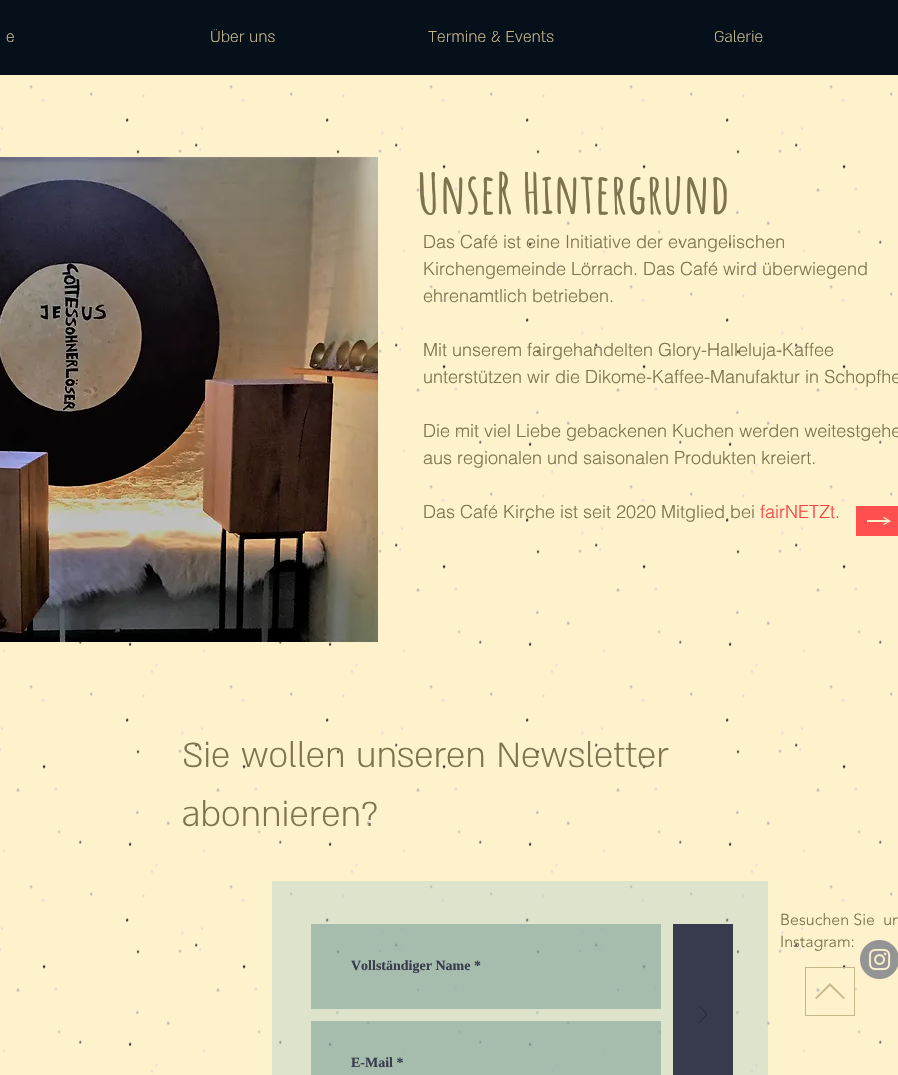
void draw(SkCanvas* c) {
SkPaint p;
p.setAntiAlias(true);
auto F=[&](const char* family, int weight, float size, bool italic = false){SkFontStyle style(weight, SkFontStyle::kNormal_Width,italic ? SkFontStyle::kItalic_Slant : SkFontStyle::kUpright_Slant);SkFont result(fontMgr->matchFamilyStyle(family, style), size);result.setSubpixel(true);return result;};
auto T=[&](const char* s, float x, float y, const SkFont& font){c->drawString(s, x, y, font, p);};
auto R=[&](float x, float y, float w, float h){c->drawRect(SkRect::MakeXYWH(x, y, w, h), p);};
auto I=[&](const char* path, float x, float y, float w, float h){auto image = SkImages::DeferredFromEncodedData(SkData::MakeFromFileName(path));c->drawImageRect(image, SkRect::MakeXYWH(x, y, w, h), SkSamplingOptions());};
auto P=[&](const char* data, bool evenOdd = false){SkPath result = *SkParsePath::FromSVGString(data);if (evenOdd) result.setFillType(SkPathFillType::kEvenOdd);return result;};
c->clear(0xfffef2cd);
p.setColor(0xff06101b);
R(0,0,898,75);
auto f1 = F("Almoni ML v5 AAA",300,18);
p.setColor(0xffc7b88b);
T("e",6,42,f1);
T("Über uns",210,42,f1);
T("Termine & Events",428,42,f1);
T("Galerie",714,42,f1);
I("3.png",0,85,893,988);
I("1.png",0,157,378,485);
auto f2 = F("Amatic SC",700,56);
p.setColor(0xff7f734e);
T("UnseR Hintergrund",417,214,f2);
auto f3 = F("helvetica",300,18);
T("Das Café ist eine Initiative der evangelischen",423,248,f3);
T("Kirchengemeinde Lörrach. Das Café wird überwiegend",423,275,f3);
T("ehrenamtlich betrieben.",423,302,f3);
T("Mit unserem fairgehandelten Glory-Halleluja-Kaffee",423,356,f3);
T("unterstützen wir die Dikome-Kaffee-Manufaktur in Schopfhe",423,383,f3);
T("Die mit viel Liebe gebackenen Kuchen werden weitestgehe",423,437,f3);
T("aus regionalen und saisonalen Produkten kreiert.",423,464,f3);
T("Das Café Kirche ist seit 2020 Mitglied bei",423,518,f3);
p.setColor(0xffff4040);
T("fairNETZt",760,518,f3);
p.setColor(0xff7f734e);
T(".",835,518,f3);
p.setColor(0xffff4f4f);
c->drawPath(P("M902 506h-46v30h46zm-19 18l4-2h-20v-2h20l-4-2l1-1l7 4l-7 4z"),p);
auto f4 = F("Almoni ML v5 AAA",300,40);
p.setColor(0xff7f734e);
T("Sie wollen unseren Newsletter",182,767,f4);
T("abonnieren?",182,826,f4);
auto f5 = F("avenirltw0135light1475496",300,16);
T("Besuchen Sie  un",780,925,f5);
T("Instagram:",780,947,f5);
p.setColor(0x69b0d1c7);
R(272,881,496,194);
p.setColor(0x9980a298);
R(311,924,350,85);
auto f6 = F("Liberation Serif",700,14);
p.setColor(0xff373b4d);
T("Vollständiger Name *",351,970,f6);
R(673,924,60,151);
p.setColor(0xff06101b);
c->drawPath(P("M707 1014.5l-7.5 8.5h-.5l7.5-8.5l-7.5-9h.5z"),p);
p.setColor(0x9980a298);
R(311,1021,350,54);
p.setColor(0xff373b4d);
T("E-Mail *",351,1067,f6);
I("2.png",860,940,38,39);
p.setStroke(true);
p.setStrokeWidth(1);
p.setColor(0xffc7b88b);
c->drawRect(SkRect::MakeXYWH(805.5,967.5,49,48),p);
p.setStroke(false);
c->drawPath(P("M815 998l1.5 1l13.5-13l13.5 13l1.5-1l-15-15z"),p);
}
